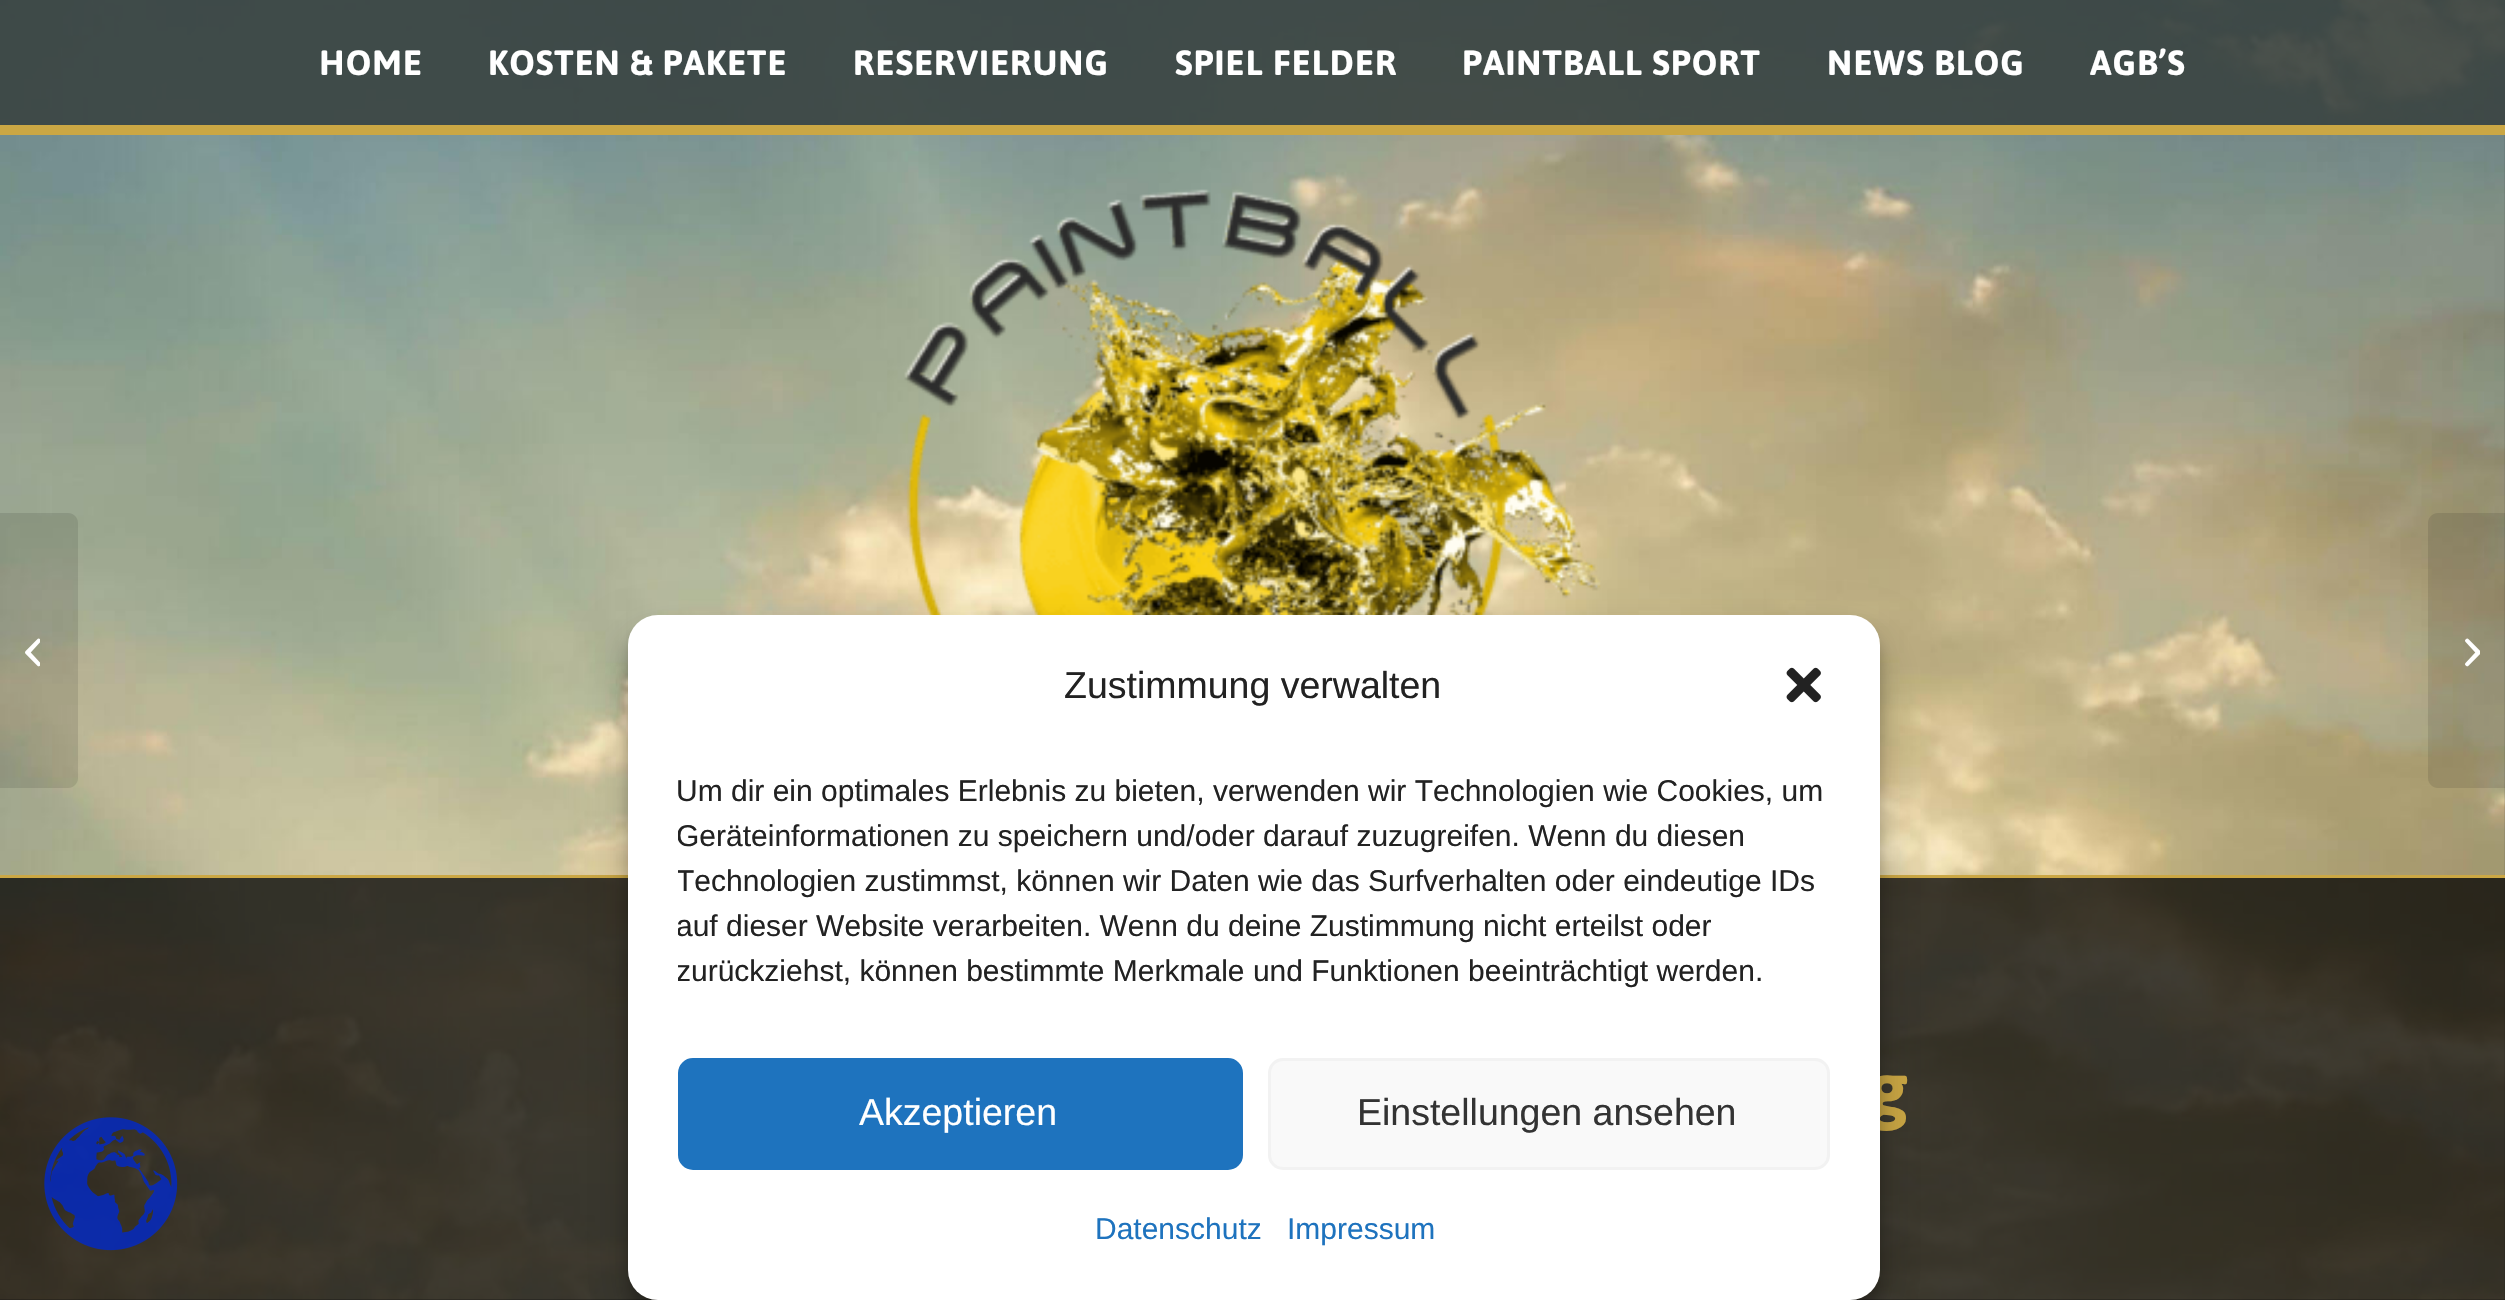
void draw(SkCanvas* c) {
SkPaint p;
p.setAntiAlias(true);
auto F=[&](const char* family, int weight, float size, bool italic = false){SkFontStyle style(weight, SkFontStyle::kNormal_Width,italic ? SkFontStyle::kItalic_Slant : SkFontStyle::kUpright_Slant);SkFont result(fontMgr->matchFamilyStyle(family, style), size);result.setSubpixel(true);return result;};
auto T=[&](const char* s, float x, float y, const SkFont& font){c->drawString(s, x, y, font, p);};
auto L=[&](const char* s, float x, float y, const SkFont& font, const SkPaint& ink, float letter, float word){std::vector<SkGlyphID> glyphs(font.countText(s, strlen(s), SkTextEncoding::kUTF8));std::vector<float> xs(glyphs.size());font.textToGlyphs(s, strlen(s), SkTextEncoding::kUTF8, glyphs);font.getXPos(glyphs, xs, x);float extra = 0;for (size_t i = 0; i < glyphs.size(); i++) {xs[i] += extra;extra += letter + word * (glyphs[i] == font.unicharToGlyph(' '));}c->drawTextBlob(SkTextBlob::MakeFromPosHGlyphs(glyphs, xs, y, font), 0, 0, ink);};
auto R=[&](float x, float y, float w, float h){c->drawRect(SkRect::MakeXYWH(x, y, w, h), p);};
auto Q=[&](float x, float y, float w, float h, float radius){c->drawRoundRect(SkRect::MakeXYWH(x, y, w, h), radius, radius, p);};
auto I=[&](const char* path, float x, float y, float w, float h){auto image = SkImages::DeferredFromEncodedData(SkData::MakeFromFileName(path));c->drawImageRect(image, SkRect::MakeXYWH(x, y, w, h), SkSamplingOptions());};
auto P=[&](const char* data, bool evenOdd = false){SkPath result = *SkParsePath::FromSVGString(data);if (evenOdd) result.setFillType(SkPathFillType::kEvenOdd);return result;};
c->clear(0xff333333);
I("1.png",0,0,2505,1300);
p.setColor(0xe6394240);
R(0,0,2505,125);
p.setColor(0xffcba744);
R(0,125,2505,10);
auto f1 = F("Asap",700,35);
p.setColor(0xffffffff);
L("HOME",319,75,f1,p,1,0);
L("KOSTEN & PAKETE",488,75,f1,p,1,0);
L("RESERVIERUNG",853,75,f1,p,1,0);
L("SPIEL FELDER",1175,75,f1,p,1,0);
L("PAINTBALL SPORT",1462,75,f1,p,1,0);
L("NEWS BLOG",1827,75,f1,p,1,0);
L("AGB’S",2090,75,f1,p,1,0);
p.setColor(0x1a000000);
c->drawPath(P("M0 513h68c5.5 0 10 4.5 10 10v255c0 5.5-4.5 10-10 10h-68z"),p);
I("2.png",25,638,15,29);
c->drawPath(P("M2438 513h67v275h-67c-5.5 0-10-4.5-10-10v-255c0-5.5 4.5-10 10-10z"),p);
I("3.png",2465,638,15,29);
I("4.png",904,189,697,426);
p.setColor(0xbf000000);
R(0,878,2505,422);
p.setColor(0xffcba744);
R(0,875,2505,3);
auto f2 = F("Asap",700,75);
T("g",1867,1115,f2);
I("5.png",44,1117,134,134);
c->save();
c->clipPath(P("M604 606h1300v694h-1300zm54 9h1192c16.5 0 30 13.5 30 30v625c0 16.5-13.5 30-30 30h-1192c-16.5 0-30-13.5-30-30v-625c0-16.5 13.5-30 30-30z",true),true);
p.setColor(0x3b000000);
p.setMaskFilter(SkMaskFilter::MakeBlur(kNormal_SkBlurStyle, 7.5));
c->drawRoundRect(SkRect::MakeXYWH(628,630,1252,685),30,30,p);
p.setMaskFilter(nullptr);
c->restore();
c->save();
c->clipPath(P("M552 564h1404v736h-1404zm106 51h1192c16.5 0 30 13.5 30 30v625c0 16.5-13.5 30-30 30h-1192c-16.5 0-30-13.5-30-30v-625c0-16.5 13.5-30 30-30z",true),true);
p.setColor(0x30000000);
p.setMaskFilter(SkMaskFilter::MakeBlur(kNormal_SkBlurStyle, 25));
c->drawRoundRect(SkRect::MakeXYWH(628,640,1252,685),30,30,p);
p.setMaskFilter(nullptr);
c->restore();
p.setColor(0xffffffff);
Q(628,615,1252,685,30);
auto f3 = F("Liberation Sans",400,37.5);
p.setColor(0xff222222);
T("Zustimmung verwalten",1064,698,f3);
I("6.png",1786,667,35,36);
auto f4 = F("Liberation Sans",400,30);
T("Um dir ein optimales Erlebnis zu bieten, verwenden wir Technologien wie Cookies, um",676,801,f4);
c->save();
c->clipRect(SkRect::MakeXYWH(678,770,1152,238));
T("Geräteinformationen zu speichern und/oder darauf zuzugreifen. Wenn du diesen",676,846,f4);
T("Technologien zustimmst, können wir Daten wie das Surfverhalten oder eindeutige IDs",676,891,f4);
T("auf dieser Website verarbeiten. Wenn du deine Zustimmung nicht erteilst oder",676,936,f4);
T("zurückziehst, können bestimmte Merkmale und Funktionen beeinträchtigt werden.",676,981,f4);
c->restore();
p.setColor(0xff1e73be);
c->drawRoundRect(SkRect::MakeXYWH(679.5,1059.5,562,109),13.5,13.5,p);
p.setStroke(true);
p.setStrokeWidth(3);
c->drawRoundRect(SkRect::MakeXYWH(679.5,1059.5,562,109),13.5,13.5,p);
p.setStroke(false);
p.setColor(0xffffffff);
T("Akzeptieren",859,1125,f3);
p.setColor(0xfff9f9f9);
c->drawRoundRect(SkRect::MakeXYWH(1269.5,1059.5,559,109),13.5,13.5,p);
p.setStroke(true);
p.setColor(0xfff2f2f2);
c->drawRoundRect(SkRect::MakeXYWH(1269.5,1059.5,559,109),13.5,13.5,p);
p.setStroke(false);
p.setColor(0xff333333);
T("Einstellungen ansehen",1357,1125,f3);
p.setColor(0xff1e73be);
T("Datenschutz",1095,1239,f4);
T("Impressum",1287,1239,f4);
}
